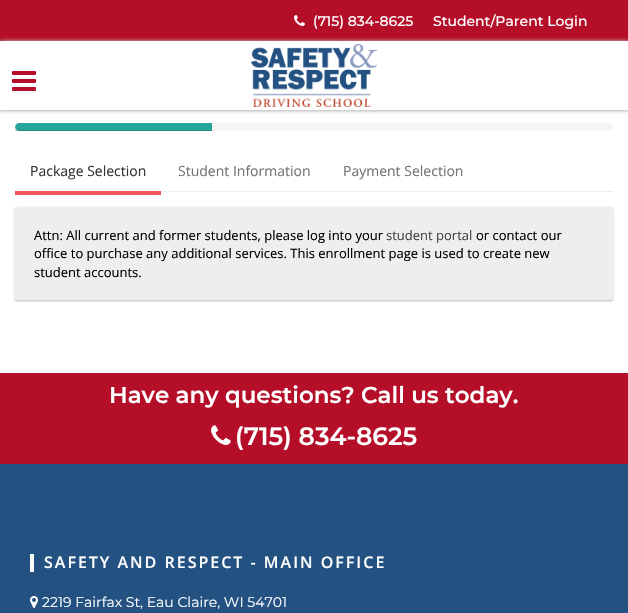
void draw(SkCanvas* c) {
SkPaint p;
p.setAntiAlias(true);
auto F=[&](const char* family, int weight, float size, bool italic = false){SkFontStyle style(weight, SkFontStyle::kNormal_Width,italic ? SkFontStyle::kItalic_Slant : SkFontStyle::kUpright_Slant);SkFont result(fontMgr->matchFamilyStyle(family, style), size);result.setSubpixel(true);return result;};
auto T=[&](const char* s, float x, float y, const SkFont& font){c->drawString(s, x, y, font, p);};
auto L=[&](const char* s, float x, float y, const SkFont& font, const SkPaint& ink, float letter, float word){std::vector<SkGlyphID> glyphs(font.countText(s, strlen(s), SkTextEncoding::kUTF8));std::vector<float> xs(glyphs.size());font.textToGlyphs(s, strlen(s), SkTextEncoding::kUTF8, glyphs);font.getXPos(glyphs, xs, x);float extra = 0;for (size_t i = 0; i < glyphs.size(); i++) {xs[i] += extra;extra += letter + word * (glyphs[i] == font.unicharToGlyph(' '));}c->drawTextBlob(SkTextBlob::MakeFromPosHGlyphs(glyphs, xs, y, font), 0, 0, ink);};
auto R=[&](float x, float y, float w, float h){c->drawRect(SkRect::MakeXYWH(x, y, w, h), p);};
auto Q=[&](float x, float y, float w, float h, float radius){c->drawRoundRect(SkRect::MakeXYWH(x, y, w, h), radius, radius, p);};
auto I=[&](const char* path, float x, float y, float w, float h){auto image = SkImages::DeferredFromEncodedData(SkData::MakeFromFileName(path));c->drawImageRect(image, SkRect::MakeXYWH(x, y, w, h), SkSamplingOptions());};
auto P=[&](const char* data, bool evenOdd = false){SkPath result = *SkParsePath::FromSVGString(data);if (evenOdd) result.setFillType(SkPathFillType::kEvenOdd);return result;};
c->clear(0xffffffff);
p.setColor(0x2e000000);
p.setMaskFilter(SkMaskFilter::MakeBlur(kNormal_SkBlurStyle, 1));
c->drawRect(SkRect::MakeXYWH(0,1,628,110),p);
p.setMaskFilter(nullptr);
p.setColor(0x1a000000);
p.setMaskFilter(SkMaskFilter::MakeBlur(kNormal_SkBlurStyle, 1.5));
c->drawRect(SkRect::MakeXYWH(0,1,628,110),p);
p.setMaskFilter(nullptr);
p.setColor(0xffb40e28);
R(0,0,628,41);
I("1.png",294,15,11,11);
auto f1 = F("Montserrat",500,14);
p.setColor(0xffffffff);
T("(715) 834-8625",313,26,f1);
T("Student/Parent Login",433,26,f1);
p.setColor(0xffcccccc);
p.setMaskFilter(SkMaskFilter::MakeBlur(kNormal_SkBlurStyle, 2));
c->drawRect(SkRect::MakeXYWH(0,41,628,69),p);
p.setMaskFilter(nullptr);
p.setColor(0xffffffff);
R(0,41,628,69);
I("2.png",12,71,24,20);
I("3.png",251,44,126,63);
p.setColor(0xfff5f5f5);
Q(15,123,598,8,4);
p.setColor(0xff26a69a);
c->drawPath(P("M19 123h193v8h-193c-2 0-4-2-4-4c0-2 2-4 4-4z"),p);
p.setColor(0x26000000);
R(15,130,197,1);
p.setColor(0xfff3565d);
R(15,191,146,4);
auto f2 = F("Open Sans",400,14);
p.setColor(0xff333333);
T("Package Selection",30,176,f2);
p.setColor(0xff737373);
T("Student Information",178,176,f2);
T("Payment Selection",343,176,f2);
p.setColor(0xffeeeeee);
R(161,191,452,1);
p.setColor(0x2e000000);
p.setMaskFilter(SkMaskFilter::MakeBlur(kNormal_SkBlurStyle, 1));
c->drawRoundRect(SkRect::MakeXYWH(15,208,598,93),2,2,p);
p.setMaskFilter(nullptr);
p.setColor(0x1a000000);
p.setMaskFilter(SkMaskFilter::MakeBlur(kNormal_SkBlurStyle, 1.5));
c->drawRoundRect(SkRect::MakeXYWH(15,208,598,93),2,2,p);
p.setMaskFilter(nullptr);
p.setColor(0xffeeeeee);
Q(15,207,598,93,2);
auto f3 = F("Open Sans",400,13);
p.setColor(0xff000000);
T("Attn: All current and former students, please log into your",34,240,f3);
p.setColor(0xff444444);
T("student portal",386,240,f3);
p.setColor(0xff000000);
T("or contact our",476,240,f3);
T("office to purchase any additional services. This enrollment page is used to create new",34,258,f3);
T("student accounts.",34,277,f3);
p.setColor(0xffb40e28);
R(0,373,628,91);
auto f4 = F("Montserrat",600,23);
p.setColor(0xffffffff);
T("Have any questions? Call us today.",109,403,f4);
I("4.png",211,425,20,20);
auto f5 = F("Montserrat",600,25);
T("(715) 834-8625",235,445,f5);
p.setColor(0xff225182);
R(0,464,628,149);
p.setColor(0xffffffff);
R(30,554,4,18);
auto f6 = F("Open Sans",600,16);
L("SAFETY AND RESPECT - MAIN OFFICE",44,568,f6,p,2,0);
I("5.png",30,596,8,12);
auto f7 = F("Montserrat",400,14);
T("2219 Fairfax St, Eau Claire, WI 54701",42,607,f7);
}
